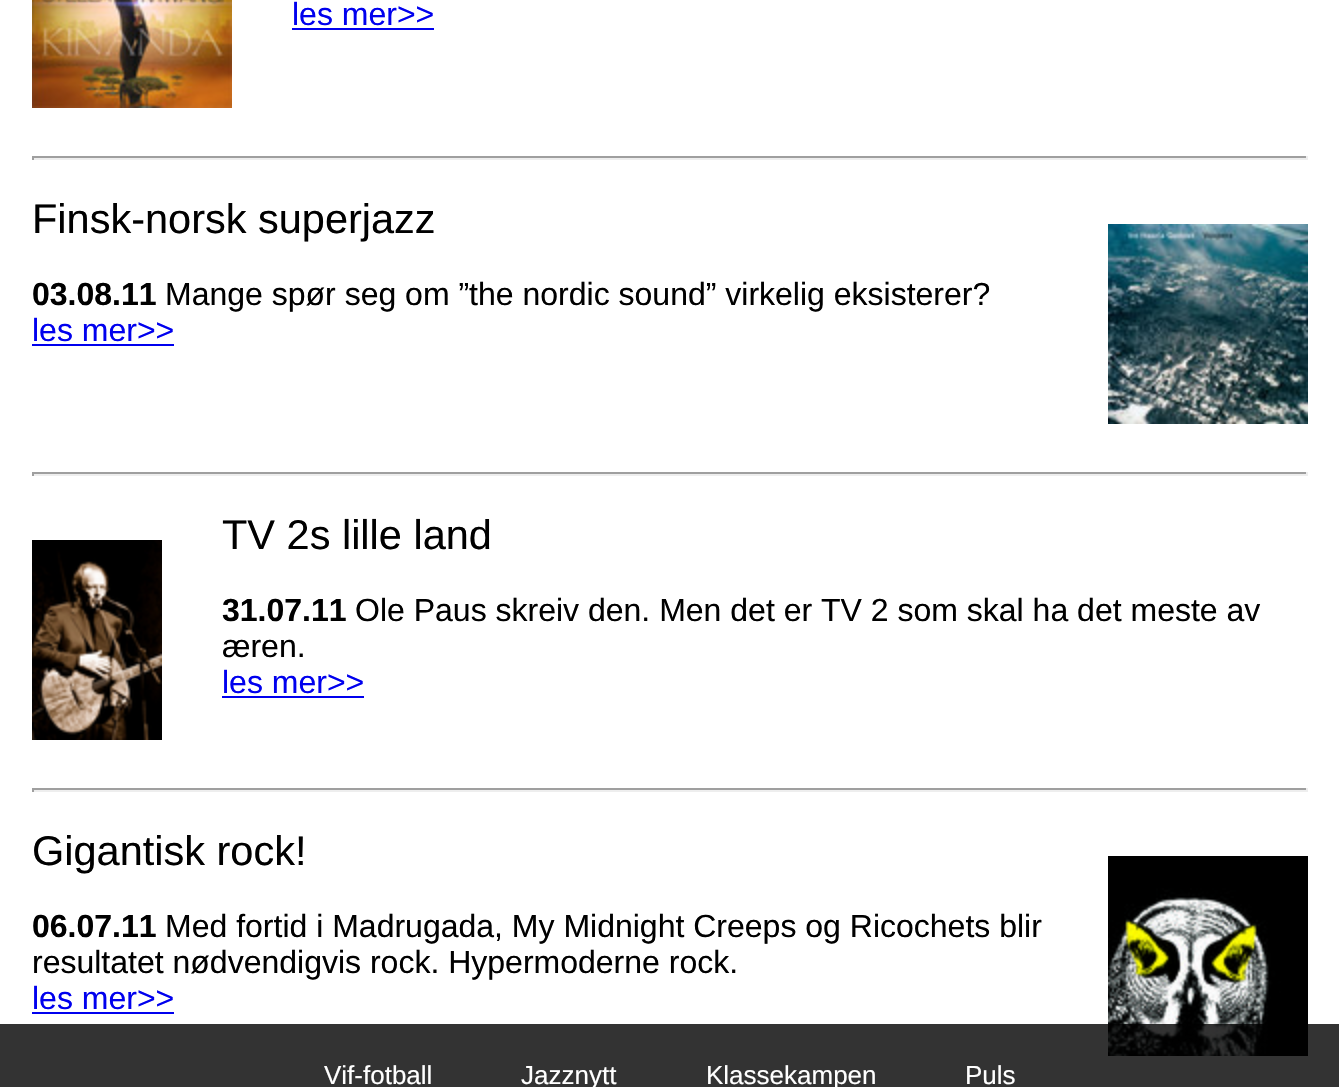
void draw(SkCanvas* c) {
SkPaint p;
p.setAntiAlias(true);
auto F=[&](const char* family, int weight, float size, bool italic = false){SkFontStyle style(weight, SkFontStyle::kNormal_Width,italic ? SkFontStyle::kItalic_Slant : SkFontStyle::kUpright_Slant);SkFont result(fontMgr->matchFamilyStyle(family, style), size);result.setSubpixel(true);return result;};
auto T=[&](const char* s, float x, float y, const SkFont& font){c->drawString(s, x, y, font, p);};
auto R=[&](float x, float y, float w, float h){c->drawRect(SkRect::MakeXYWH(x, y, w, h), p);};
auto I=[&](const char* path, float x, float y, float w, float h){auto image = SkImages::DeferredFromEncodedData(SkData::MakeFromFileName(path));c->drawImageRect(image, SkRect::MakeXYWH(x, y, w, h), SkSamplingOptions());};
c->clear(0xffffffff);
I("1.png",32,0,200,108);
auto f1 = F("Liberation Sans",400,32);
p.setColor(0xff0000ee);
T("les mer>>",292,25,f1);
R(292,28,142,2);
p.setColor(0xff9f9f9f);
R(32,156,1276,2);
p.setColor(0xffeeeeee);
R(1306,156,2,4);
R(32,158,1276,2);
p.setColor(0xff9f9f9f);
R(32,156,2,4);
auto f2 = F("Liberation Sans",400,41.5);
p.setColor(0xff000000);
T("Finsk-norsk superjazz",32,233,f2);
I("2.png",1108,224,200,200);
auto f3 = F("Liberation Sans",700,32);
T("03.08.11",32,305,f3);
T("Mange spør seg om ”the nordic sound” virkelig eksisterer?",165,305,f1);
p.setColor(0xff0000ee);
T("les mer>>",32,341,f1);
R(32,344,142,2);
p.setColor(0xff9f9f9f);
R(32,472,1276,2);
p.setColor(0xffeeeeee);
R(1306,472,2,4);
R(32,474,1276,2);
p.setColor(0xff9f9f9f);
R(32,472,2,4);
p.setColor(0xff000000);
T("TV 2s lille land",222,549,f2);
I("3.png",32,540,130,200);
T("31.07.11",222,621,f3);
T("Ole Paus skreiv den. Men det er TV 2 som skal ha det meste av",355,621,f1);
T("æren.",222,657,f1);
p.setColor(0xff0000ee);
T("les mer>>",222,693,f1);
R(222,696,142,2);
p.setColor(0xff9f9f9f);
R(32,788,1276,2);
p.setColor(0xffeeeeee);
R(1306,788,2,4);
R(32,790,1276,2);
p.setColor(0xff9f9f9f);
R(32,788,2,4);
p.setColor(0xff000000);
T("Gigantisk rock!",32,865,f2);
I("4.png",1108,856,200,200);
T("06.07.11",32,937,f3);
T("Med fortid i Madrugada, My Midnight Creeps og Ricochets blir",165,937,f1);
T("resultatet nødvendigvis rock. Hypermoderne rock.",32,973,f1);
p.setColor(0xff0000ee);
T("les mer>>",32,1009,f1);
R(32,1012,142,2);
p.setColor(0xcc000000);
R(0,1024,1339,63);
auto f4 = F("Liberation Sans",400,26);
p.setColor(0xffffffff);
T("Vif-fotball",324,1084,f4);
T("Jazznytt",521,1084,f4);
T("Klassekampen",706,1084,f4);
T("Puls",965,1084,f4);
}
